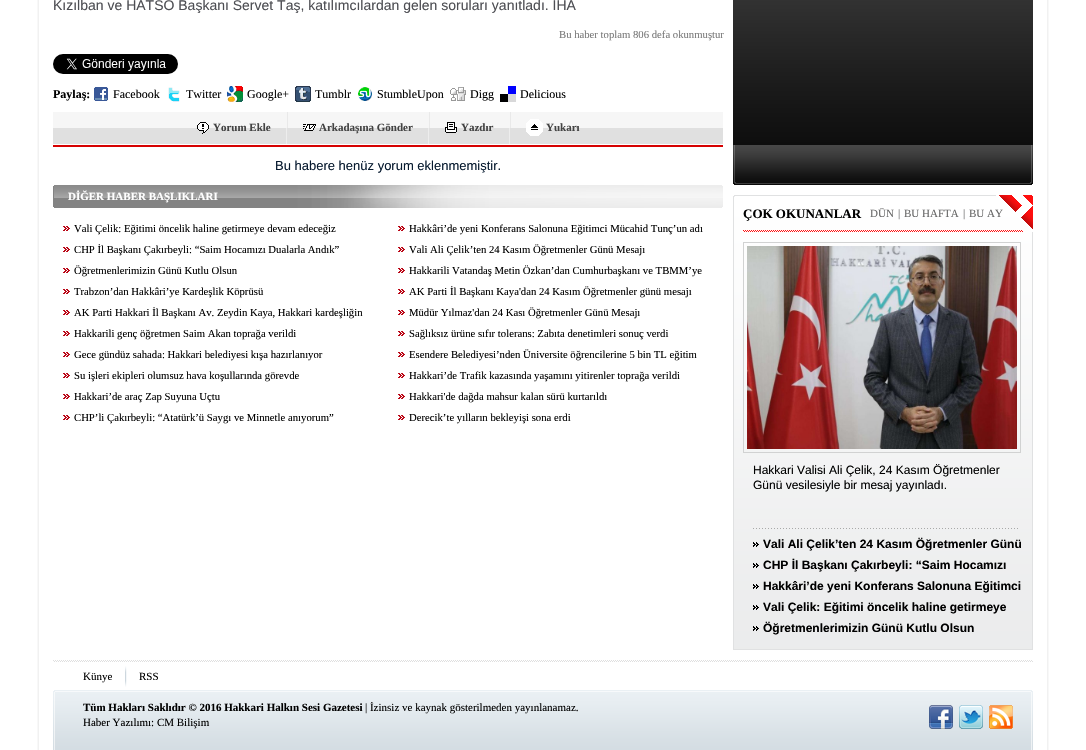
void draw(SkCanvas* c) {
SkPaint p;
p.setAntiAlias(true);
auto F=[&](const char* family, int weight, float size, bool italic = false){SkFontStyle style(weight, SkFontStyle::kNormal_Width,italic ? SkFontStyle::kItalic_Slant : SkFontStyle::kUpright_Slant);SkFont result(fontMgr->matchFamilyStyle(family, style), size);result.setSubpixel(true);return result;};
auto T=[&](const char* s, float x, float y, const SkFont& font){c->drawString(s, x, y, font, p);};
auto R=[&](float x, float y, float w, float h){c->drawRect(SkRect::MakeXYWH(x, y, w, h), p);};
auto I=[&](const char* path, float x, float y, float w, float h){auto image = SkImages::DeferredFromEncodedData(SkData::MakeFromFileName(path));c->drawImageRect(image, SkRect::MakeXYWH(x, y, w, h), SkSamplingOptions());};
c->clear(0xffffffff);
I("1.png",37,0,1012,750);
auto f1 = F("Liberation Sans",400,14);
p.setColor(0xff4d4e53);
T("Kızılban ve HATSO Başkanı Servet Taş, katılımcılardan gelen soruları yanıtladı. İHA",53,10,f1);
auto f2 = F("Liberation Serif",400,10.7);
p.setColor(0xff797979);
T("Bu haber toplam 806 defa okunmuştur",559,38,f2);
I("2.png",53,54,125,20);
auto f3 = F("Liberation Serif",700,12);
p.setColor(0xff000000);
T("Paylaş:",53,98,f3);
I("3.png",94,87,14,14);
auto f4 = F("Liberation Serif",400,12);
T("Facebook",113,98,f4);
I("4.png",168,87,12,15);
T("Twitter",186,98,f4);
I("5.png",227,86,16,16);
T("Google+",247,98,f4);
I("6.png",295,86,16,16);
T("Tumblr",315,98,f4);
I("7.png",358,87,14,14);
T("StumbleUpon",377,98,f4);
I("8.png",450,87,16,14);
T("Digg",470,98,f4);
I("9.png",500,86,16,16);
T("Delicious",520,98,f4);
I("10.png",53,112,670,35);
I("11.png",197,122,12,12);
auto f5 = F("Liberation Serif",700,11);
p.setColor(0xff434343);
T("Yorum Ekle",213,131,f5);
I("12.png",286,112,2,32);
I("13.png",303,124,13,7);
T("Arkadaşına Gönder",319,131,f5);
I("12.png",428,112,2,32);
I("14.png",445,122,12,11);
T("Yazdır",461,131,f5);
I("12.png",509,112,2,32);
I("15.png",526,119,17,17);
T("Yukarı",546,131,f5);
auto f6 = F("Liberation Sans",400,13);
p.setColor(0xff071a2f);
T("Bu habere henüz yorum eklenmemiştir.",275,170,f6);
I("16.png",53,185,670,23);
p.setColor(0xffffffff);
T("DİĞER HABER BAŞLIKLARI",68,200,f5);
I("17.png",63,226,7,5);
p.setColor(0xff000000);
T("Vali Çelik: Eğitimi öncelik haline getirmeye devam edeceğiz",74,232,f2);
I("17.png",398,226,7,5);
T("Hakkâri’de yeni Konferans Salonuna Eğitimci Mücahid Tunç’un adı",409,232,f2);
I("17.png",63,247,7,5);
T("CHP İl Başkanı Çakırbeyli: “Saim Hocamızı Dualarla Andık”",74,253,f2);
I("17.png",398,247,7,5);
T("Vali Ali Çelik’ten 24 Kasım Öğretmenler Günü Mesajı",409,253,f2);
I("17.png",63,268,7,5);
T("Öğretmenlerimizin Günü Kutlu Olsun",74,274,f2);
I("17.png",398,268,7,5);
T("Hakkarili Vatandaş Metin Özkan’dan Cumhurbaşkanı ve TBMM’ye",409,274,f2);
I("17.png",63,289,7,5);
T("Trabzon’dan Hakkâri’ye Kardeşlik Köprüsü",74,295,f2);
I("17.png",398,289,7,5);
T("AK Parti İl Başkanı Kaya'dan 24 Kasım Öğretmenler günü mesajı",409,295,f2);
I("17.png",63,310,7,5);
T("AK Parti Hakkari İl Başkanı Av. Zeydin Kaya, Hakkari kardeşliğin",74,316,f2);
I("17.png",398,310,7,5);
T("Müdür Yılmaz'dan 24 Kası Öğretmenler Günü Mesajı",409,316,f2);
I("17.png",63,331,7,5);
T("Hakkarili genç öğretmen Saim Akan toprağa verildi",74,337,f2);
I("17.png",398,331,7,5);
T("Sağlıksız ürüne sıfır tolerans: Zabıta denetimleri sonuç verdi",409,337,f2);
I("17.png",63,352,7,5);
T("Gece gündüz sahada: Hakkari belediyesi kışa hazırlanıyor",74,358,f2);
I("17.png",398,352,7,5);
T("Esendere Belediyesi’nden Üniversite öğrencilerine 5 bin TL eğitim",409,358,f2);
I("17.png",63,373,7,5);
T("Su işleri ekipleri olumsuz hava koşullarında görevde",74,379,f2);
I("17.png",398,373,7,5);
T("Hakkari’de Trafik kazasında yaşamını yitirenler toprağa verildi",409,379,f2);
I("17.png",63,394,7,5);
T("Hakkari’de araç Zap Suyuna Uçtu",74,400,f2);
I("17.png",398,394,7,5);
T("Hakkari'de dağda mahsur kalan sürü kurtarıldı",409,400,f2);
I("17.png",63,415,7,5);
T("CHP’li Çakırbeyli: “Atatürk’ü Saygı ve Minnetle anıyorum”",74,421,f2);
I("17.png",398,415,7,5);
T("Derecik’te yılların bekleyişi sona erdi",409,421,f2);
I("18.png",733,0,300,145);
I("19.png",733,145,300,40);
I("20.png",733,195,300,37);
auto f7 = F("Liberation Serif",700,13);
T("ÇOK OKUNANLAR",743,218,f7);
auto f8 = F("Liberation Serif",400,11);
p.setColor(0xff666666);
T("DÜN",870,217,f8);
T("|",898,217,f8);
T("BU HAFTA",904,217,f8);
T("|",963,217,f8);
T("BU AY",969,217,f8);
I("21.png",733,232,300,417);
p.setStroke(true);
p.setStrokeWidth(1);
p.setColor(0xffd1d2d2);
c->drawRect(SkRect::MakeXYWH(743.5,242.5,277,210),p);
I("22.png",747,246,270,203);
auto f9 = F("Liberation Sans",400,12);
p.setStroke(false);
p.setColor(0xff000000);
T("Hakkari Valisi Ali Çelik, 24 Kasım Öğretmenler",753,474,f9);
T("Günü vesilesiyle bir mesaj yayınladı.",753,489,f9);
I("23.png",753,528,265,1);
I("24.png",753,542,6,5);
auto f10 = F("Liberation Sans",700,12);
T("Vali Ali Çelik’ten 24 Kasım Öğretmenler Günü",763,548,f10);
I("25.png",753,563,6,5);
T("CHP İl Başkanı Çakırbeyli: “Saim Hocamızı",763,569,f10);
I("26.png",753,584,6,5);
T("Hakkâri’de yeni Konferans Salonuna Eğitimci",763,590,f10);
I("27.png",753,605,6,5);
T("Vali Çelik: Eğitimi öncelik haline getirmeye",763,611,f10);
I("28.png",753,626,6,5);
T("Öğretmenlerimizin Günü Kutlu Olsun",763,632,f10);
p.setColor(0xffe0e1e2);
R(733,649,300,1);
I("29.png",53,660,980,90);
p.setColor(0xff000000);
T("Künye",83,680,f8);
I("30.png",125,666,2,21);
T("RSS",139,680,f8);
T("Tüm Hakları Saklıdır © 2016 Hakkari Halkın Sesi Gazetesi",83,711,f5);
T("| İzinsiz ve kaynak gösterilmeden yayınlanamaz.",365,711,f8);
T("Haber Yazılımı: CM Bilişim",83,726,f8);
I("31.png",929,705,24,24);
I("32.png",959,705,24,24);
I("33.png",989,705,24,24);
}
